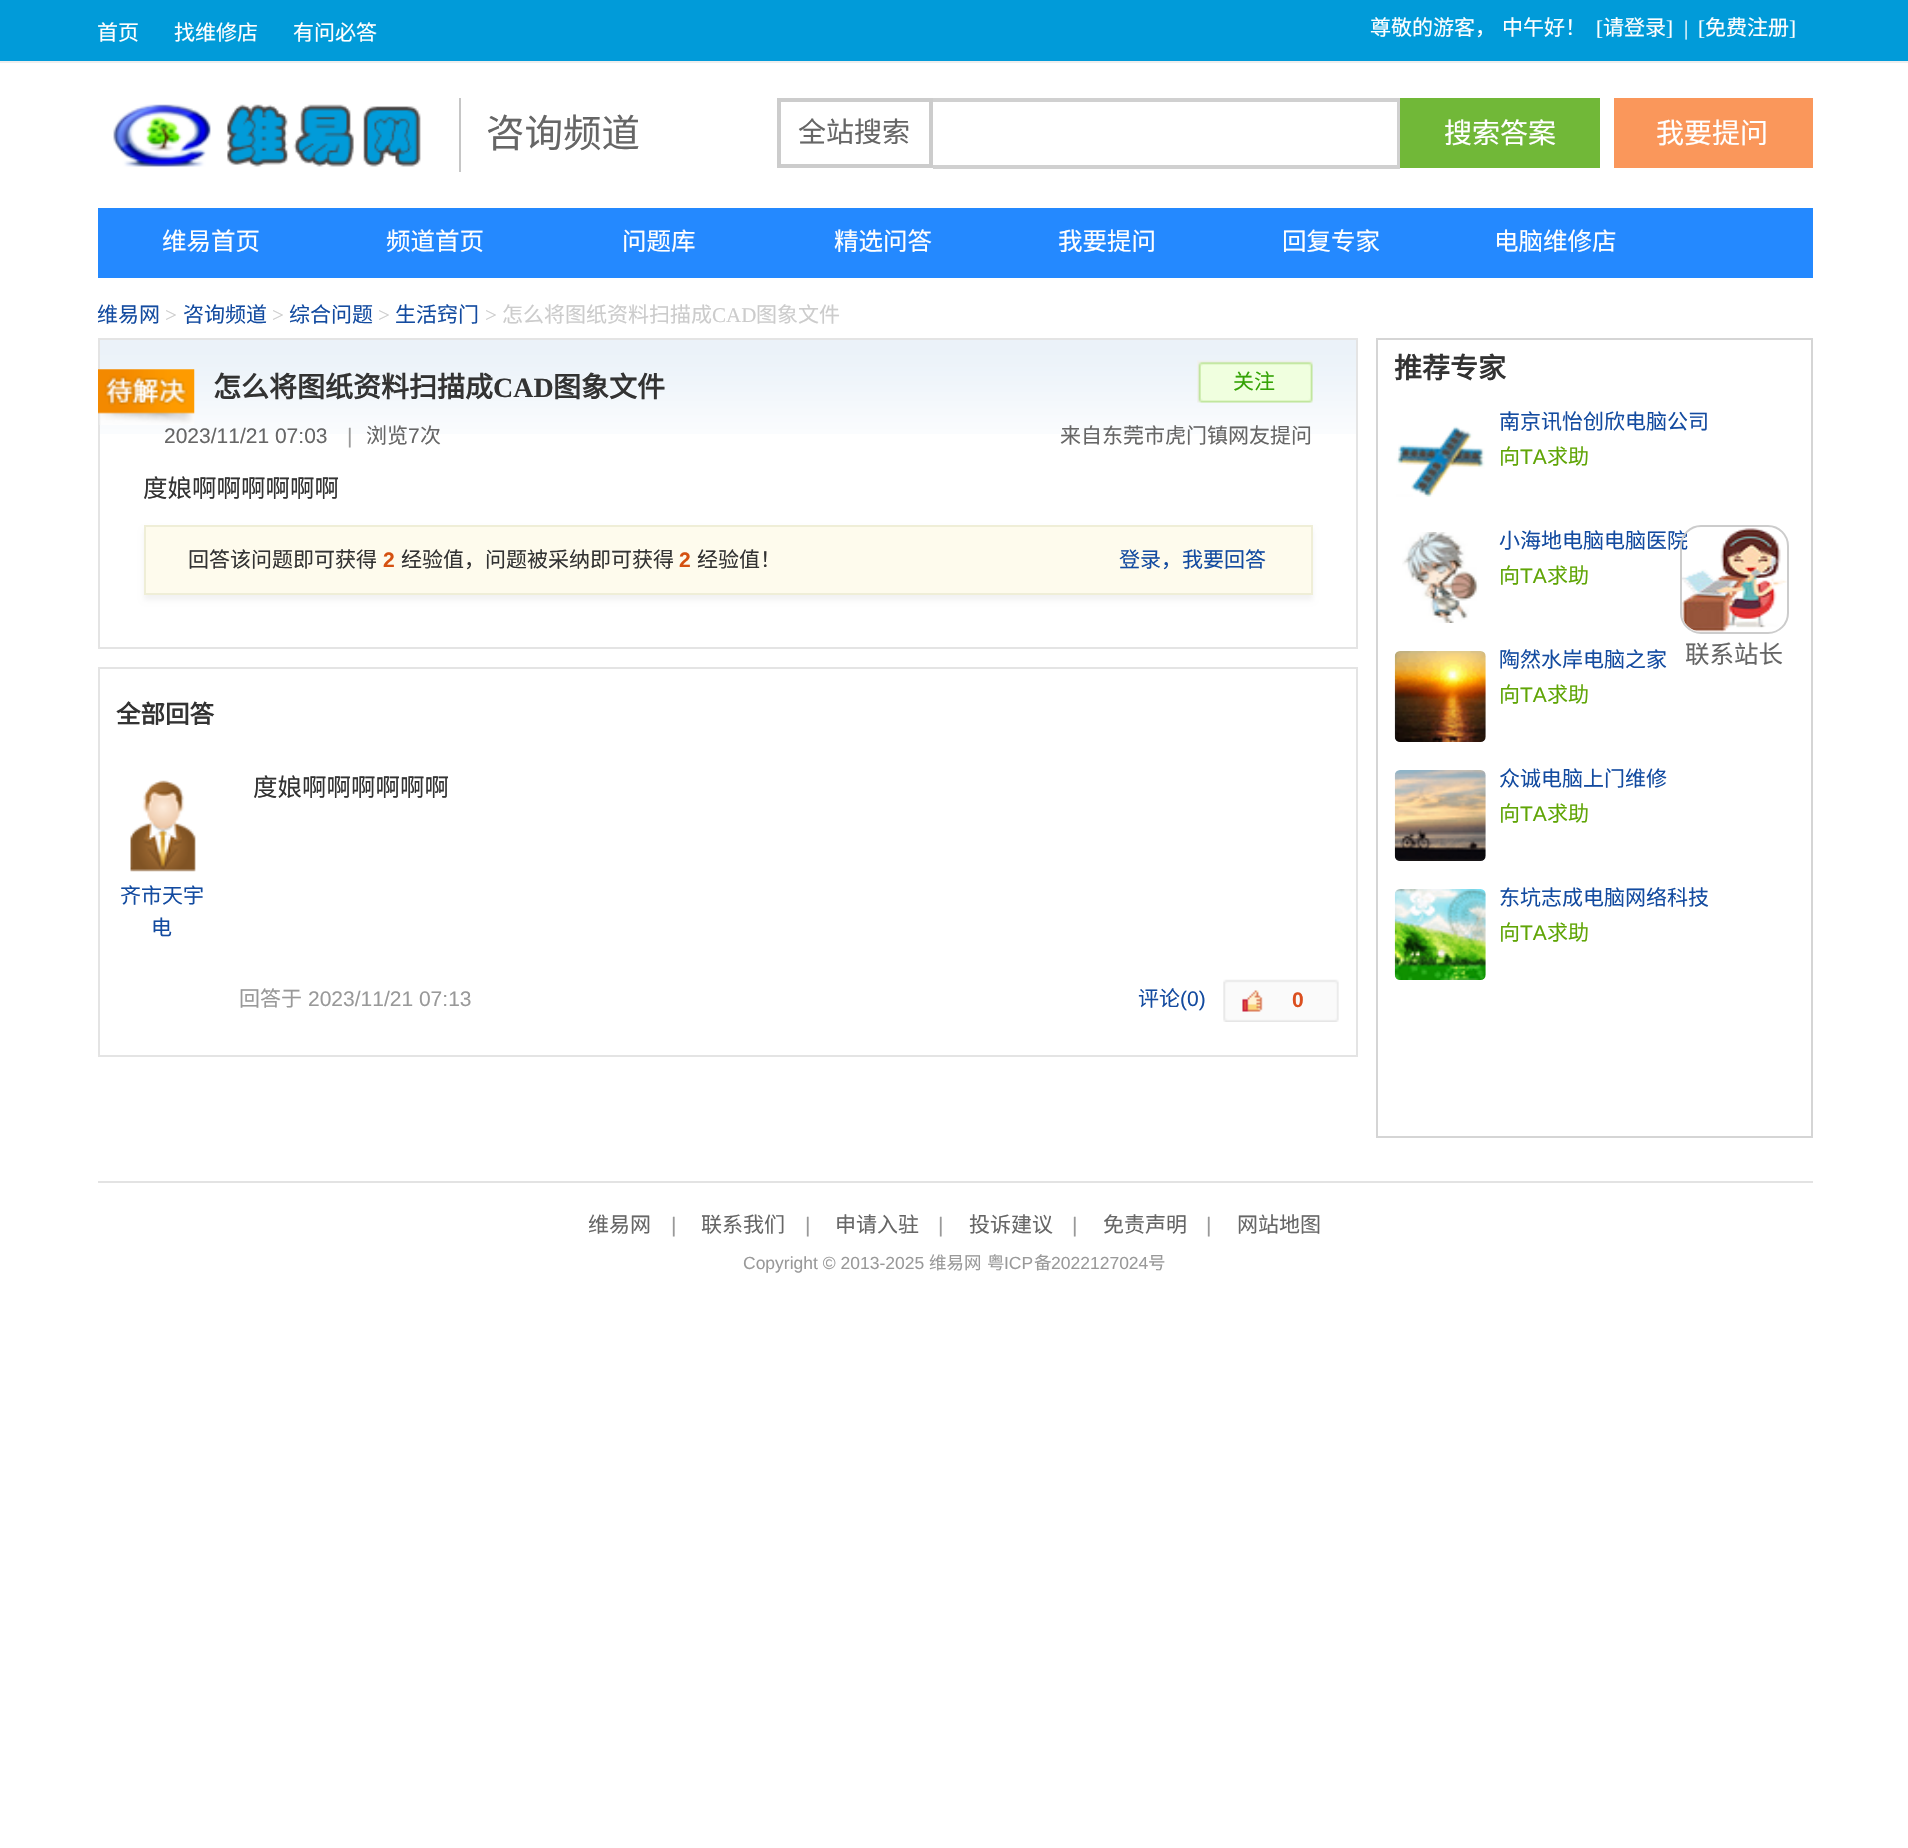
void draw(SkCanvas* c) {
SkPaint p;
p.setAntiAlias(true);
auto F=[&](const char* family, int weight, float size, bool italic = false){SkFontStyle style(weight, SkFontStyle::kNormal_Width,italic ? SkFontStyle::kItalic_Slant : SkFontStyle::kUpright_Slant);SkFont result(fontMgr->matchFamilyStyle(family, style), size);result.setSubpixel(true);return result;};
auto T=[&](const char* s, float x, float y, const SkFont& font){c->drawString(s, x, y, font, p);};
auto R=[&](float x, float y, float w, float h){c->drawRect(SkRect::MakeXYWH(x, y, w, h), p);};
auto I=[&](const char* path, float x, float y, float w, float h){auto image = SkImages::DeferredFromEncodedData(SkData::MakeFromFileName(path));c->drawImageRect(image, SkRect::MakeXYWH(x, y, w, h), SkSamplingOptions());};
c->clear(0xffffffff);
p.setColor(0xff019bd9);
R(0,0,1908,61);
p.setColor(0xffeeeeee);
R(0,61,1908,2);
auto f1 = F("Noto Sans CJK SC",400,21);
p.setColor(0xffffffff);
T("首页",97,40,f1);
T("找维修店",174,40,f1);
T("有问必答",293,40,f1);
T("尊敬的游客，",1370,35,f1);
T("中午好！",1502,35,f1);
auto f2 = F("Liberation Serif",400,21);
T("[",1596,35,f2);
T("请登录",1603,35,f1);
T("]",1666,35,f2);
T("|",1684,35,f2);
T("[",1698,35,f2);
T("免费注册",1705,35,f1);
T("]",1789,35,f2);
I("1.png",113,104,308,63);
p.setColor(0xffc6c6c6);
R(459,98,2,74);
auto f3 = F("Noto Sans CJK SC",400,38.5);
p.setColor(0xff666666);
T("咨询频道",486,147,f3);
p.setStroke(true);
p.setStrokeWidth(4);
p.setColor(0xffcccccc);
c->drawRect(SkRect::MakeXYWH(779,100,152,66),p);
auto f4 = F("Noto Sans CJK SC",400,28);
p.setStroke(false);
p.setColor(0xff666666);
T("全站搜索",798,142,f4);
p.setColor(0xffd0d0d0);
R(933,98,467,4);
R(1397,98,3,70);
R(933,165,467,4);
p.setColor(0xff71b838);
R(1400,98,200,70);
p.setColor(0xffffffff);
T("搜索答案",1444,143,f4);
p.setColor(0xfffa975b);
R(1614,98,199,70);
p.setColor(0xffffffff);
T("我要提问",1656,143,f4);
p.setColor(0xff2489ff);
R(98,208,1715,70);
auto f5 = F("Noto Sans CJK SC",400,24.5);
p.setColor(0xffffffff);
T("维易首页",162,250,f5);
T("频道首页",386,250,f5);
T("问题库",622,250,f5);
T("精选问答",834,250,f5);
T("我要提问",1058,250,f5);
T("回复专家",1282,250,f5);
T("电脑维修店",1494,250,f5);
p.setColor(0xff134ba0);
T("维易网",97,322,f1);
p.setColor(0xffcccccc);
T(">",165,322,f2);
p.setColor(0xff134ba0);
T("咨询频道",183,322,f1);
p.setColor(0xffcccccc);
T(">",272,322,f2);
p.setColor(0xff134ba0);
T("综合问题",289,322,f1);
p.setColor(0xffcccccc);
T(">",378,322,f2);
p.setColor(0xff134ba0);
T("生活窍门",395,322,f1);
p.setColor(0xffcccccc);
T(">",485,322,f2);
T("怎么将图纸资料扫描成",502,322,f1);
T("CAD",712,322,f2);
T("图象文件",756,322,f1);
I("2.png",100,340,1256,94);
p.setStroke(true);
p.setStrokeWidth(2);
p.setColor(0xffe4e4e4);
c->drawRect(SkRect::MakeXYWH(99,339,1258,309),p);
I("3.png",98,369,97,56);
auto f6 = F("Noto Sans CJK SC",700,28);
p.setStroke(false);
p.setColor(0xff333333);
T("怎么将图纸资料扫描成",213,397,f6);
auto f7 = F("Liberation Serif",700,28);
T("CAD",493,397,f7);
T("图象文件",553,397,f6);
I("4.png",1197,360,116,43);
p.setColor(0xff34a305);
T("关注",1233,389,f1);
auto f8 = F("Liberation Sans",400,21);
p.setColor(0xff666666);
T("2023/11/21 07:03",164,443,f8);
p.setColor(0xff999999);
T("|",347,443,f8);
p.setColor(0xff666666);
T("浏览",366,443,f1);
T("7",408,443,f8);
T("次",420,443,f1);
T("来自东莞市虎门镇网友提问",1060,443,f1);
p.setColor(0xff333333);
T("度娘啊啊啊啊啊啊",143,497,f5);
p.setColor(0x0d000000);
p.setMaskFilter(SkMaskFilter::MakeBlur(kNormal_SkBlurStyle, 2.5));
c->drawRect(SkRect::MakeXYWH(144,530,1169,70),p);
p.setMaskFilter(nullptr);
p.setColor(0xfffefbed);
c->drawRect(SkRect::MakeXYWH(145,526,1167,68),p);
p.setStroke(true);
p.setColor(0xffefeed7);
c->drawRect(SkRect::MakeXYWH(145,526,1167,68),p);
p.setStroke(false);
p.setColor(0xff333333);
T("回答该问题即可获得",188,567,f1);
auto f9 = F("Liberation Sans",700,21);
p.setColor(0xffd55111);
T("2",383,567,f9);
p.setColor(0xff333333);
T("经验值，问题被采纳即可获得",401,567,f1);
p.setColor(0xffd55111);
T("2",679,567,f9);
p.setColor(0xff333333);
T("经验值！",697,567,f1);
p.setColor(0xff134ba0);
T("登录，我要回答",1119,567,f1);
p.setStroke(true);
p.setColor(0xffe4e4e4);
c->drawRect(SkRect::MakeXYWH(99,668,1258,388),p);
auto f10 = F("Noto Sans CJK SC",700,24.5);
p.setStroke(false);
p.setColor(0xff333333);
T("全部回答",116,723,f10);
T("度娘啊啊啊啊啊啊",253,796,f5);
I("5.png",130,780,66,92);
p.setColor(0xff134ba0);
T("齐市天宇",120,903,f1);
T("电",151,935,f1);
p.setColor(0xff999999);
T("回答于",239,1006,f1);
T("2023/11/21 07:13",308,1006,f8);
p.setColor(0xff134ba0);
T("评论",1138,1006,f1);
T("(0)",1180,1006,f8);
I("6.png",1223,979,116,43);
p.setColor(0xffdb4f1f);
T("0",1292,1007,f9);
p.setStroke(true);
p.setColor(0xffd5d5d5);
c->drawRect(SkRect::MakeXYWH(1377,339,435,798),p);
p.setStroke(false);
p.setColor(0xff333333);
T("推荐专家",1394,378,f6);
p.setColor(0xff134ba0);
T("南京讯怡创欣电脑公司",1499,429,f1);
I("7.png",1396,426,89,71);
p.setColor(0xff60a506);
T("向",1499,464,f1);
T("TA",1520,464,f8);
T("求助",1547,464,f1);
I("8.png",1402,532,77,91);
p.setColor(0xff134ba0);
T("小海地电脑电脑医院",1499,548,f1);
p.setColor(0xff60a506);
T("向",1499,583,f1);
T("TA",1520,583,f8);
T("求助",1547,583,f1);
I("9.png",1394,651,92,91);
p.setColor(0xff134ba0);
T("陶然水岸电脑之家",1499,667,f1);
p.setColor(0xff60a506);
T("向",1499,702,f1);
T("TA",1520,702,f8);
T("求助",1547,702,f1);
I("10.png",1394,770,92,91);
p.setColor(0xff134ba0);
T("众诚电脑上门维修",1499,786,f1);
p.setColor(0xff60a506);
T("向",1499,821,f1);
T("TA",1520,821,f8);
T("求助",1547,821,f1);
I("11.png",1394,889,92,91);
p.setColor(0xff134ba0);
T("东坑志成电脑网络科技",1499,905,f1);
p.setColor(0xff60a506);
T("向",1499,940,f1);
T("TA",1520,940,f8);
T("求助",1547,940,f1);
p.setStroke(true);
p.setColor(0xffcccccc);
c->drawRoundRect(SkRect::MakeXYWH(1681,526,107,107),20,20,p);
I("12.png",1682,528,105,104);
p.setStroke(false);
p.setColor(0xff666666);
T("联系站长",1685,663,f5);
p.setColor(0xffe3e3e3);
R(98,1181,1715,2);
p.setColor(0xff666666);
T("维易网",588,1232,f1);
p.setColor(0xff999999);
T("|",671,1232,f8);
p.setColor(0xff666666);
T("联系我们",701,1232,f1);
p.setColor(0xff999999);
T("|",805,1232,f8);
p.setColor(0xff666666);
T("申请入驻",835,1232,f1);
p.setColor(0xff999999);
T("|",938,1232,f8);
p.setColor(0xff666666);
T("投诉建议",969,1232,f1);
p.setColor(0xff999999);
T("|",1072,1232,f8);
p.setColor(0xff666666);
T("免责声明",1103,1232,f1);
p.setColor(0xff999999);
T("|",1206,1232,f8);
p.setColor(0xff666666);
T("网站地图",1237,1232,f1);
auto f11 = F("Liberation Sans",400,17.5);
p.setColor(0xff999999);
T("Copyright © 2013-2025",743,1269,f11);
auto f12 = F("Noto Sans CJK SC",400,17.5);
T("维易网",929,1269,f12);
T("粤",987,1269,f12);
T("ICP",1004,1269,f11);
T("备",1034,1269,f12);
T("2022127024",1051,1269,f11);
T("号",1148,1269,f12);
}
